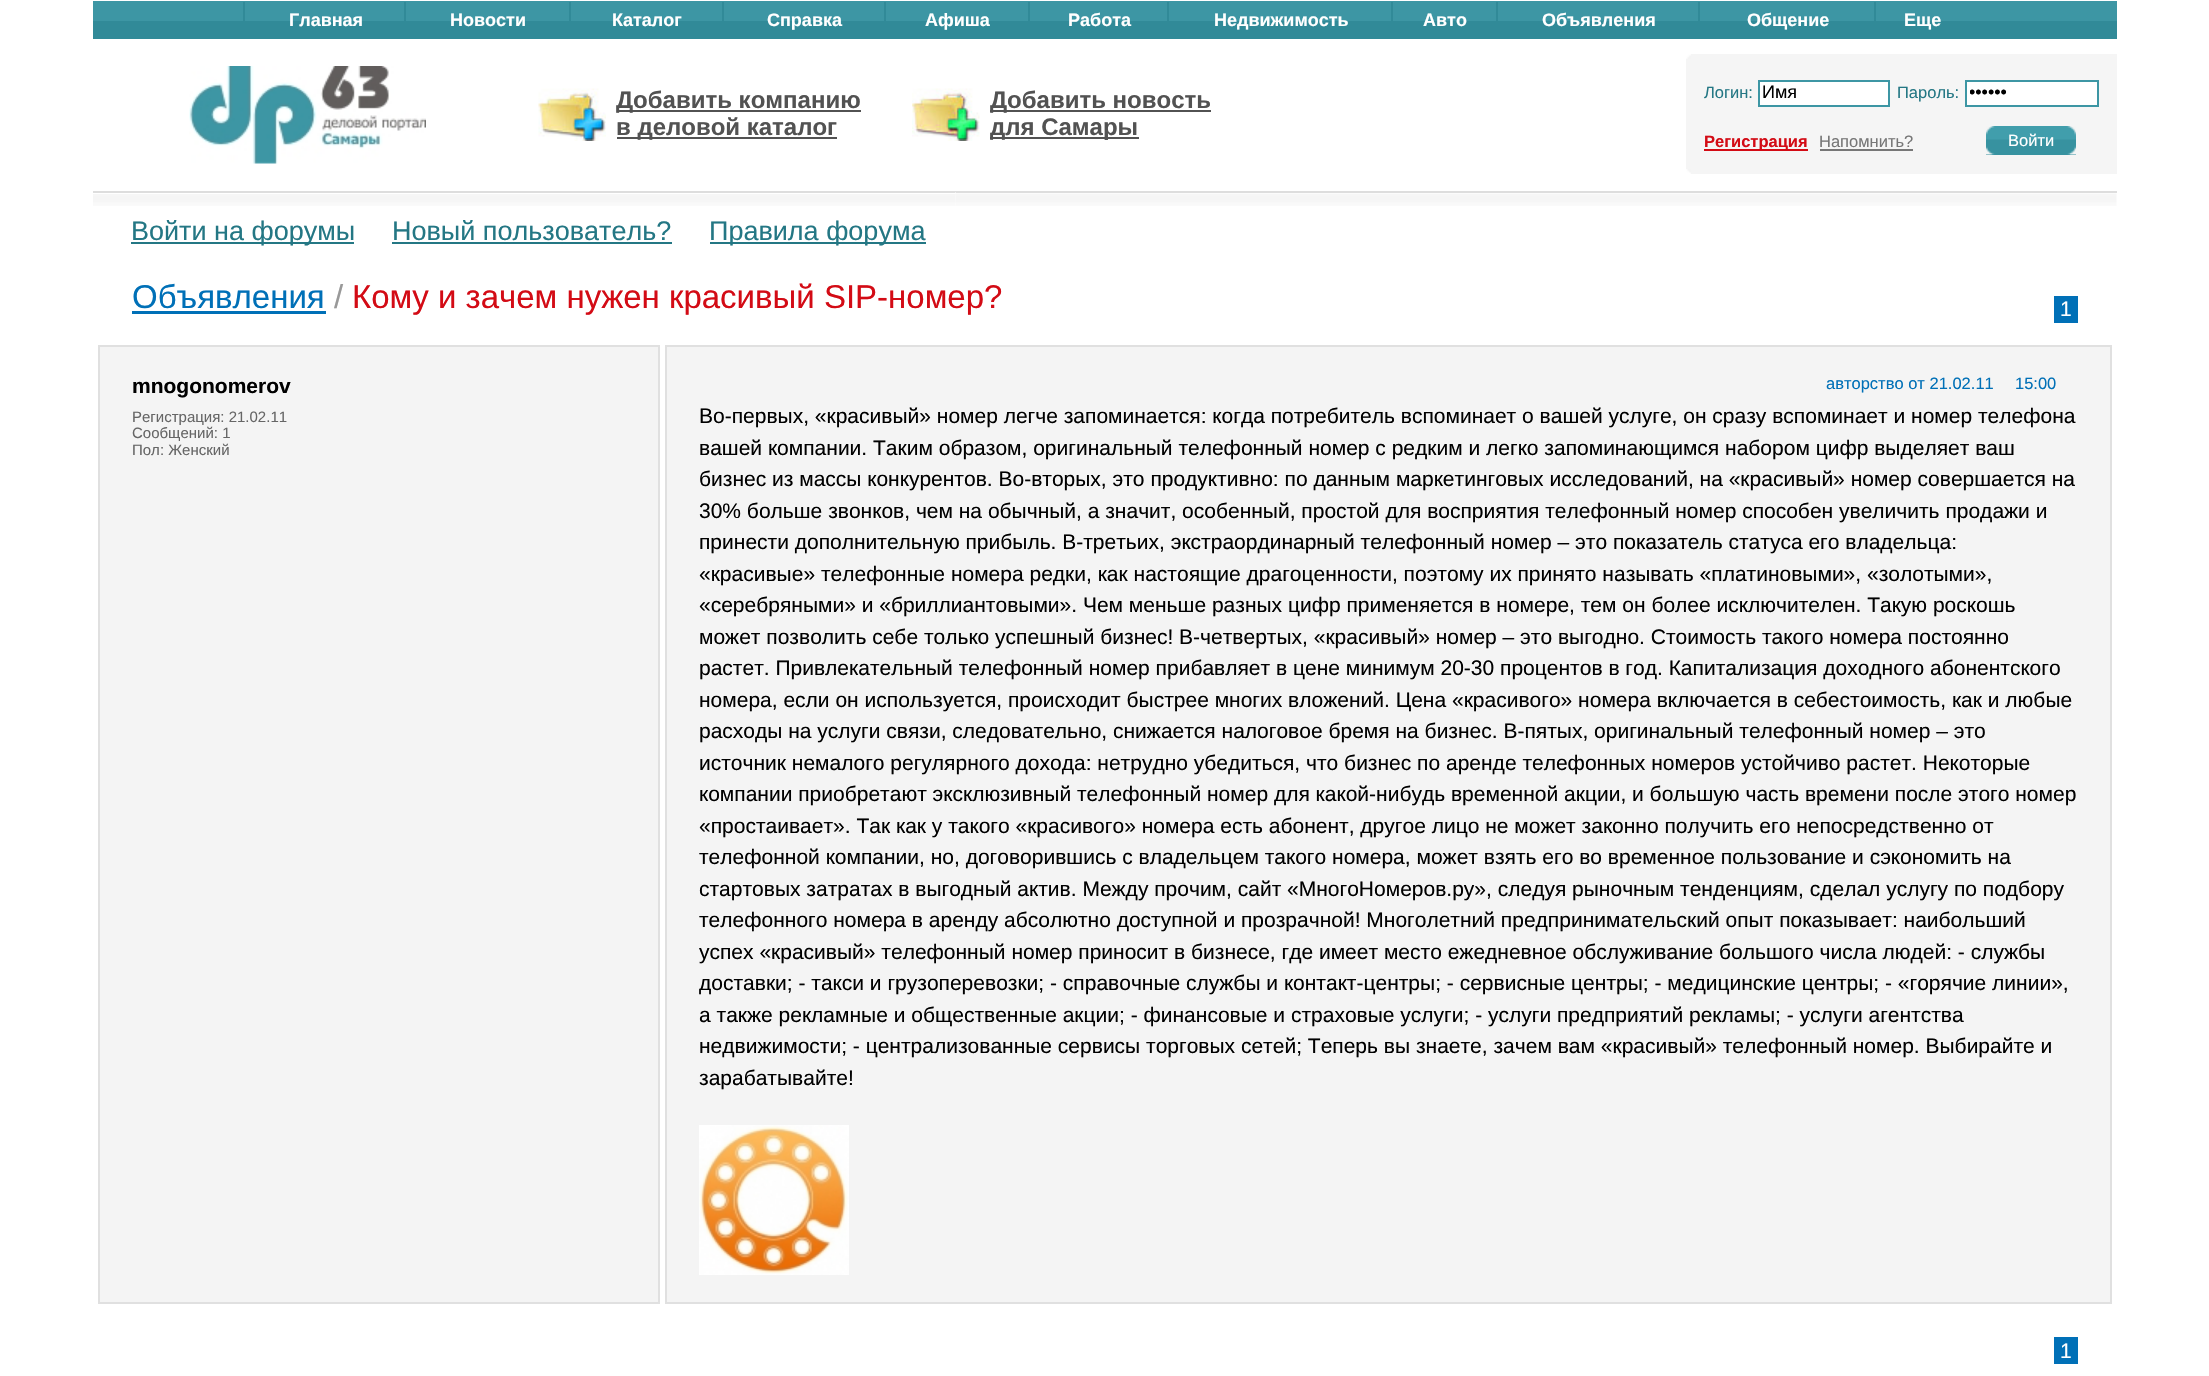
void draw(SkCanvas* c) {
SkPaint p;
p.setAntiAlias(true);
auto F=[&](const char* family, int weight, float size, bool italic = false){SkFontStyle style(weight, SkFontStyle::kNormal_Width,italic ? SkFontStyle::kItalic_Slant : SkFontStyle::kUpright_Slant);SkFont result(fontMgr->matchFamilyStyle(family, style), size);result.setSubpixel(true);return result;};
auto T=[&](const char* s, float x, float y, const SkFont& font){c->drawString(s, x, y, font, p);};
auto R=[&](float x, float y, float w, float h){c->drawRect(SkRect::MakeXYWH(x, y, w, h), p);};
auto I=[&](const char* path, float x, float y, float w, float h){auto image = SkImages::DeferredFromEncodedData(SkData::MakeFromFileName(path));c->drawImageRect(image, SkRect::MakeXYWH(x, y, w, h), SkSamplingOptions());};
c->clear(0xffffffff);
p.setColor(0xff318a98);
R(93,21,150,18);
p.setColor(0xff3d96a4);
R(93,1,2024,20);
p.setColor(0xff318a98);
R(245,21,159,18);
R(243,2,2,37);
auto f1 = F("Liberation Sans",700,18);
p.setColor(0xffffffff);
T("Главная",289,26,f1);
p.setColor(0xff318a98);
R(406,21,163,18);
R(404,2,2,37);
p.setColor(0xffffffff);
T("Новости",450,26,f1);
p.setColor(0xff318a98);
R(571,21,151,18);
R(569,2,2,37);
p.setColor(0xffffffff);
T("Каталог",612,26,f1);
p.setColor(0xff318a98);
R(724,21,160,18);
R(722,2,2,37);
p.setColor(0xffffffff);
T("Справка",767,26,f1);
p.setColor(0xff318a98);
R(886,21,142,18);
R(884,2,2,37);
p.setColor(0xffffffff);
T("Афиша",925,26,f1);
p.setColor(0xff318a98);
R(1030,21,137,18);
R(1028,2,2,37);
p.setColor(0xffffffff);
T("Работа",1068,26,f1);
p.setColor(0xff318a98);
R(1169,21,222,18);
R(1167,2,2,37);
p.setColor(0xffffffff);
T("Недвижимость",1214,26,f1);
p.setColor(0xff318a98);
R(1393,21,103,18);
R(1391,2,2,37);
p.setColor(0xffffffff);
T("Авто",1423,26,f1);
p.setColor(0xff318a98);
R(1498,21,200,18);
R(1496,2,2,37);
p.setColor(0xffffffff);
T("Объявления",1542,26,f1);
p.setColor(0xff318a98);
R(1700,21,174,18);
R(1698,2,2,37);
p.setColor(0xffffffff);
T("Общение",1747,26,f1);
p.setColor(0xff318a98);
R(1876,21,241,18);
R(1874,2,2,37);
p.setColor(0xffffffff);
T("Еще",1904,26,f1);
I("1.png",189,66,237,98);
I("2.png",538,88,68,53);
p.setColor(0xff525252);
R(617,110,244,2);
auto f2 = F("Liberation Sans",700,24);
T("Добавить компанию",616,108,f2);
R(617,137,220,2);
T("в деловой каталог",616,135,f2);
I("3.png",912,88,68,53);
R(990,110,221,2);
T("Добавить новость",990,108,f2);
R(990,137,149,2);
T("для Самары",990,135,f2);
p.setColor(0xfff5f5f5);
R(1686,54,431,120);
I("4.png",1686,54,5,5);
auto f3 = F("Liberation Sans",400,16.5);
p.setColor(0xff247784);
T("Логин:",1704,98,f3);
p.setColor(0xffffffff);
c->drawRect(SkRect::MakeXYWH(1759,81,130,25),p);
p.setStroke(true);
p.setStrokeWidth(2);
p.setColor(0xff3d96a4);
c->drawRect(SkRect::MakeXYWH(1759,81,130,25),p);
auto f4 = F("Liberation Sans",400,18);
p.setStroke(false);
p.setColor(0xff000000);
T("Имя",1762,98,f4);
p.setColor(0xff247784);
T("Пароль:",1897,98,f3);
p.setColor(0xffffffff);
c->drawRect(SkRect::MakeXYWH(1966,81,132,25),p);
p.setStroke(true);
p.setColor(0xff3d96a4);
c->drawRect(SkRect::MakeXYWH(1966,81,132,25),p);
c->save();
c->clipRect(SkRect::MakeXYWH(1970,83,124,21));
p.setStroke(false);
p.setColor(0xff000000);
T("••••••",1969,98,f4);
c->restore();
p.setColor(0xffd30b15);
R(1704,149,104,2);
auto f5 = F("Liberation Sans",700,16.5);
T("Регистрация",1704,147,f5);
p.setColor(0xff777777);
T("Напомнить?",1819,147,f3);
R(1820,149,93,2);
p.setColor(0xff3792a0);
R(1986,154,90,1);
I("5.png",1986,126,90,29);
p.setColor(0xffffffff);
T("Войти",2008,146,f3);
I("6.png",1686,169,5,5);
I("7.png",93,194,30,12);
p.setColor(0xffdddddd);
R(93,191,863,2);
I("11.png",702,194,254,12);
I("8.png",955,192,1162,14);
R(956,191,1161,2);
I("9.png",123,194,261,12);
p.setColor(0xff247784);
R(131,242,223,2);
auto f6 = F("Liberation Sans",400,27);
T("Войти на форумы",131,240,f6);
I("10.png",384,194,318,12);
T("Новый пользователь?",392,240,f6);
R(392,242,280,2);
R(710,242,216,2);
T("Правила форума",709,240,f6);
auto f7 = F("Liberation Sans",400,33);
p.setColor(0xff0070b7);
T("Объявления",132,308,f7);
R(132,311,194,3);
p.setColor(0xff999999);
T("/",334,308,f7);
p.setColor(0xffd30b15);
T("Кому и зачем нужен красивый SIP-номер?",352,308,f7);
p.setColor(0xff0070b7);
R(2054,296,24,27);
auto f8 = F("Liberation Sans",400,21);
p.setColor(0xffffffff);
T("1",2060,316,f8);
p.setColor(0xfff4f4f4);
c->drawRect(SkRect::MakeXYWH(99,346,560,957),p);
p.setStroke(true);
p.setColor(0xffe0e0e0);
c->drawRect(SkRect::MakeXYWH(99,346,560,957),p);
auto f9 = F("Liberation Sans",700,21);
p.setStroke(false);
p.setColor(0xff000000);
T("mnogonomerov",132,393,f9);
auto f10 = F("Liberation Sans",400,15);
p.setColor(0xff666666);
T("Регистрация: 21.02.11",132,422,f10);
T("Сообщений: 1",132,438,f10);
T("Пол: Женский",132,455,f10);
p.setColor(0xfff4f4f4);
c->drawRect(SkRect::MakeXYWH(666,346,1445,957),p);
p.setStroke(true);
p.setColor(0xffe0e0e0);
c->drawRect(SkRect::MakeXYWH(666,346,1445,957),p);
p.setStroke(false);
p.setColor(0xff0070b7);
T("авторство от 21.02.11",1826,389,f3);
T("15:00",2015,389,f3);
p.setColor(0xff000000);
T("Во-первых, «красивый» номер легче запоминается: когда потребитель вспоминает о вашей услуге, он сразу вспоминает и номер телефона",699,423,f8);
T("вашей компании. Таким образом, оригинальный телефонный номер с редким и легко запоминающимся набором цифр выделяет ваш",699,455,f8);
T("бизнес из массы конкурентов. Во-вторых, это продуктивно: по данным маркетинговых исследований, на «красивый» номер совершается на",699,486,f8);
T("30% больше звонков, чем на обычный, а значит, особенный, простой для восприятия телефонный номер способен увеличить продажи и",699,518,f8);
T("принести дополнительную прибыль. В-третьих, экстраординарный телефонный номер – это показатель статуса его владельца:",699,549,f8);
T("«красивые» телефонные номера редки, как настоящие драгоценности, поэтому их принято называть «платиновыми», «золотыми»,",699,581,f8);
T("«серебряными» и «бриллиантовыми». Чем меньше разных цифр применяется в номере, тем он более исключителен. Такую роскошь",699,612,f8);
T("может позволить себе только успешный бизнес! В-четвертых, «красивый» номер – это выгодно. Стоимость такого номера постоянно",699,644,f8);
T("растет. Привлекательный телефонный номер прибавляет в цене минимум 20-30 процентов в год. Капитализация доходного абонентского",699,675,f8);
T("номера, если он используется, происходит быстрее многих вложений. Цена «красивого» номера включается в себестоимость, как и любые",699,707,f8);
T("расходы на услуги связи, следовательно, снижается налоговое бремя на бизнес. В-пятых, оригинальный телефонный номер – это",699,738,f8);
T("источник немалого регулярного дохода: нетрудно убедиться, что бизнес по аренде телефонных номеров устойчиво растет. Некоторые",699,770,f8);
T("компании приобретают эксклюзивный телефонный номер для какой-нибудь временной акции, и большую часть времени после этого номер",699,801,f8);
T("«простаивает». Так как у такого «красивого» номера есть абонент, другое лицо не может законно получить его непосредственно от",699,833,f8);
T("телефонной компании, но, договорившись с владельцем такого номера, может взять его во временное пользование и сэкономить на",699,864,f8);
T("стартовых затратах в выгодный актив. Между прочим, сайт «МногоНомеров.ру», следуя рыночным тенденциям, сделал услугу по подбору",699,896,f8);
T("телефонного номера в аренду абсолютно доступной и прозрачной! Многолетний предпринимательский опыт показывает: наибольший",699,927,f8);
T("успех «красивый» телефонный номер приносит в бизнесе, где имеет место ежедневное обслуживание большого числа людей: - службы",699,959,f8);
T("доставки; - такси и грузоперевозки; - справочные службы и контакт-центры; - сервисные центры; - медицинские центры; - «горячие линии»,",699,990,f8);
T("а также рекламные и общественные акции; - финансовые и страховые услуги; - услуги предприятий рекламы; - услуги агентства",699,1022,f8);
T("недвижимости; - централизованные сервисы торговых сетей; Теперь вы знаете, зачем вам «красивый» телефонный номер. Выбирайте и",699,1053,f8);
T("зарабатывайте!",699,1085,f8);
I("12.png",699,1125,150,150);
p.setColor(0xff0070b7);
R(2054,1337,24,27);
p.setColor(0xffffffff);
T("1",2060,1358,f8);
}
